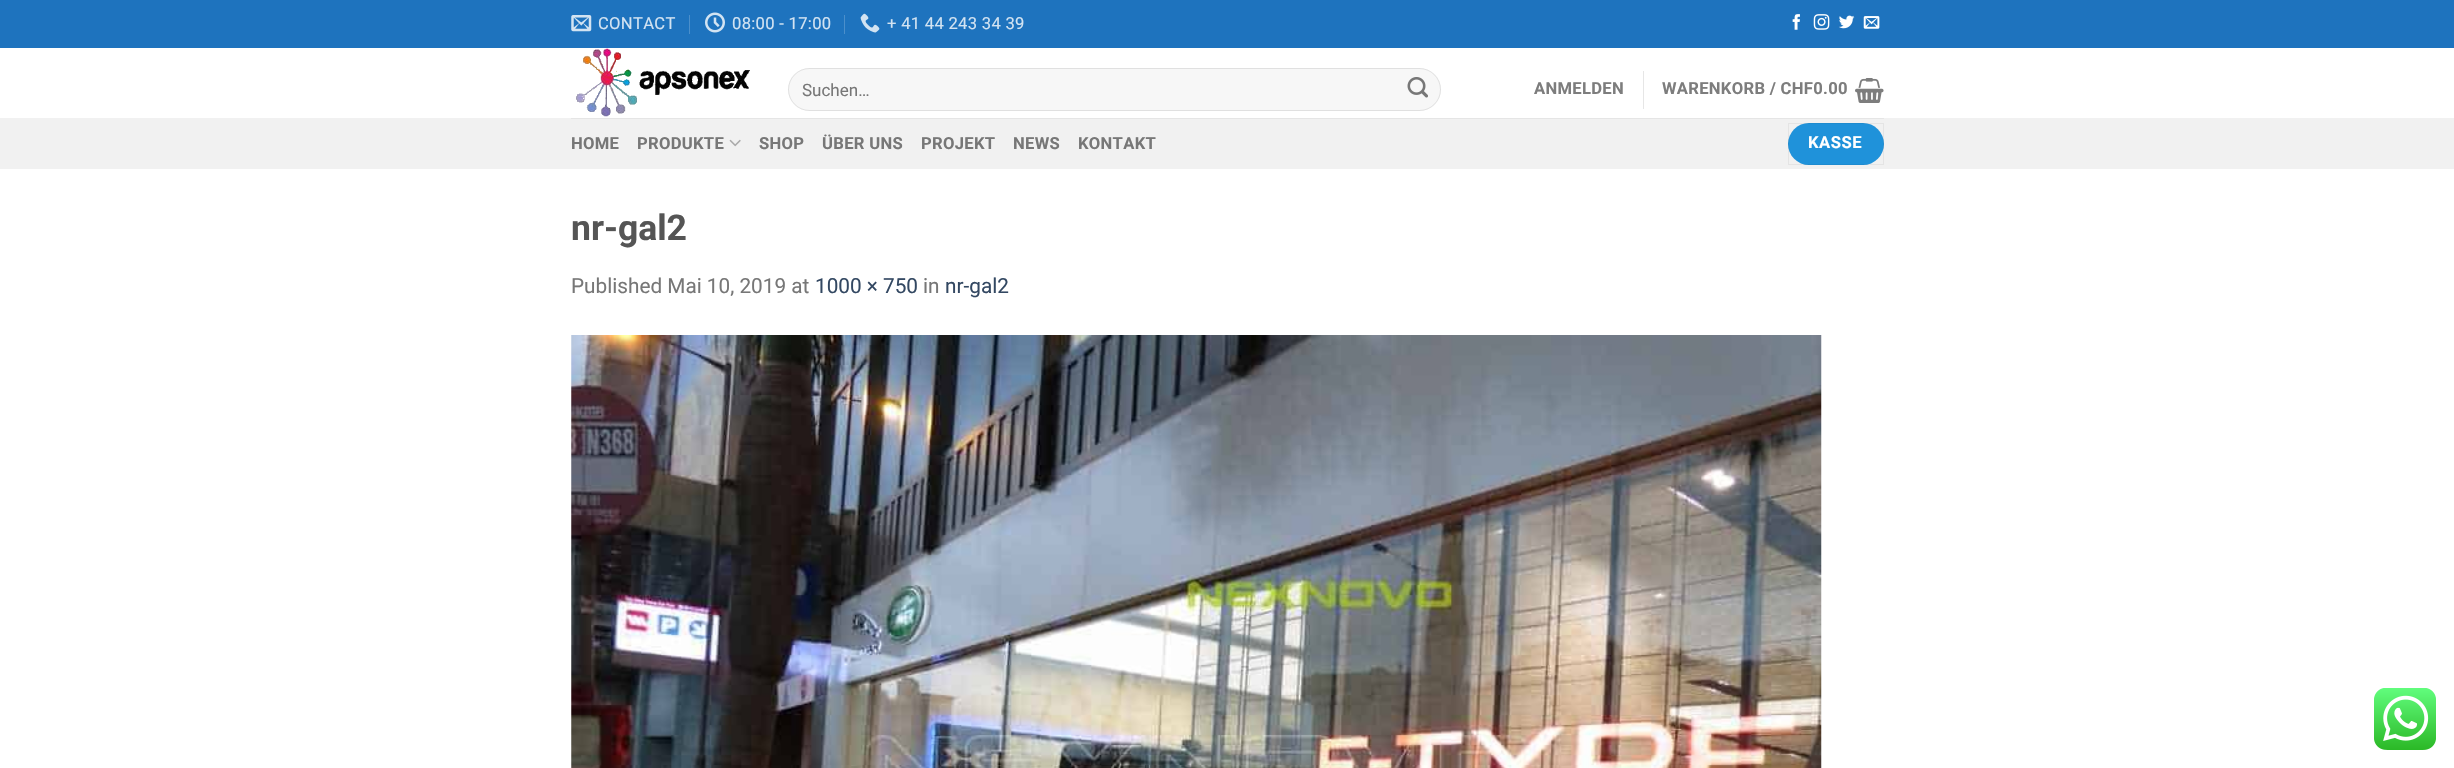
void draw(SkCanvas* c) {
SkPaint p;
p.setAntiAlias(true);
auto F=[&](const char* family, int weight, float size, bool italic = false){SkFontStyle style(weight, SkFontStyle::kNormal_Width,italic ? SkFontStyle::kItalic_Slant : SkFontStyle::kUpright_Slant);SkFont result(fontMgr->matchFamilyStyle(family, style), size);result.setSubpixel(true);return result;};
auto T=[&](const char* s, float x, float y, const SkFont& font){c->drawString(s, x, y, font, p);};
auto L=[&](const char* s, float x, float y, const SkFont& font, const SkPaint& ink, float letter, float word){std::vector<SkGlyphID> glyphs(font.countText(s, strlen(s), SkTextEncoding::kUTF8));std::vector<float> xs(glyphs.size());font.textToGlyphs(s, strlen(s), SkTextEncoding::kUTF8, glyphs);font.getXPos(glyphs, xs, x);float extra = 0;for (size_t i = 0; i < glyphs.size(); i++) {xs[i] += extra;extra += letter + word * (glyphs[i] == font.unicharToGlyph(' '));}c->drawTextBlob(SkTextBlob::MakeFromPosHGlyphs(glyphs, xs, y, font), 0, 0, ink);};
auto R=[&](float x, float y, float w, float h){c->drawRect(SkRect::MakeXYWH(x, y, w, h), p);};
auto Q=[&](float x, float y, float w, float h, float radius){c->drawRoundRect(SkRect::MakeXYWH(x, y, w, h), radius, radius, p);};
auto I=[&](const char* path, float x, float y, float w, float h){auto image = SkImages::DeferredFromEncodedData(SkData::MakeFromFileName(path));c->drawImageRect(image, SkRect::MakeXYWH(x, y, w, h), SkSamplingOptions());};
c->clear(0xffffffff);
p.setColor(0xff1e73be);
R(0,0,2454,48);
I("1.png",571,15,21,17);
auto f1 = F("Roboto",400,16.6);
p.setColor(0xffd2e3f2);
L("CONTACT",598,29,f1,p,.3,0);
p.setColor(0xff4b8fcb);
R(689,15,1,19);
I("2.png",705,12,20,21);
p.setColor(0xffd2e3f2);
L("08:00 - 17:00",732,29,f1,p,.3,0);
p.setColor(0xff4b8fcb);
R(844,15,1,19);
I("3.png",860,13,20,20);
p.setColor(0xffd2e3f2);
L("+ 41 44 243 34 39",887,29,f1,p,.3,0);
I("4.png",1792,14,8,16);
I("5.png",1813,14,17,16);
I("6.png",1839,15,16,14);
I("7.png",1863,16,17,13);
I("8.png",576,48,174,69);
p.setColor(0xfff7f7f7);
Q(788,68,653,43,21.5);
p.setStroke(true);
p.setStrokeWidth(1);
p.setColor(0x17000000);
c->drawRoundRect(SkRect::MakeXYWH(788.5,68.5,652,42),21,21,p);
auto f2 = F("Roboto",400,17);
p.setStroke(false);
p.setColor(0xff777777);
T("Suchen…",802,96,f2);
I("9.png",1407,77,21,21);
auto f3 = F("Roboto",700,16.6);
p.setColor(0xff7d7d7d);
L("ANMELDEN",1534,94,f3,p,.3,0);
p.setColor(0xffe6e6e6);
R(1643,71,1,38);
p.setColor(0xff7d7d7d);
L("WARENKORB / CHF0.00",1662,94,f3,p,.3,0);
I("10.png",1855,78,29,25);
p.setColor(0xfff1f1f1);
R(0,118,2454,51);
p.setColor(0xffe5e5e5);
R(571,118,1313,1);
p.setColor(0xff777777);
L("HOME",571,149,f3,p,.3,0);
L("PRODUKTE",637,149,f3,p,.3,0);
I("11.png",729,139,12,8);
L("SHOP",759,149,f3,p,.3,0);
L("ÜBER UNS",822,149,f3,p,.3,0);
L("PROJEKT",921,149,f3,p,.3,0);
L("NEWS",1013,149,f3,p,.3,0);
L("KONTAKT",1078,149,f3,p,.3,0);
p.setColor(0xff1f92da);
Q(1788,123,96,42,21);
p.setStroke(true);
p.setColor(0x0d000000);
c->drawRect(SkRect::MakeXYWH(1788.5,123.5,95,41),p);
p.setStroke(false);
p.setColor(0xffffffff);
L("KASSE",1808,148,f3,p,.5,0);
auto f4 = F("Roboto",700,35.5);
p.setColor(0xff555555);
T("nr-gal2",571,240,f4);
auto f5 = F("Roboto",400,20.75);
p.setColor(0xff777777);
T("Published Mai 10, 2019 at",571,293,f5);
p.setColor(0xff334862);
T("1000 × 750",815,293,f5);
p.setColor(0xff777777);
T("in",923,293,f5);
p.setColor(0xff334862);
T("nr-gal2",945,293,f5);
I("12.png",571,335,1251,433);
I("13.png",2374,688,62,62);
}
